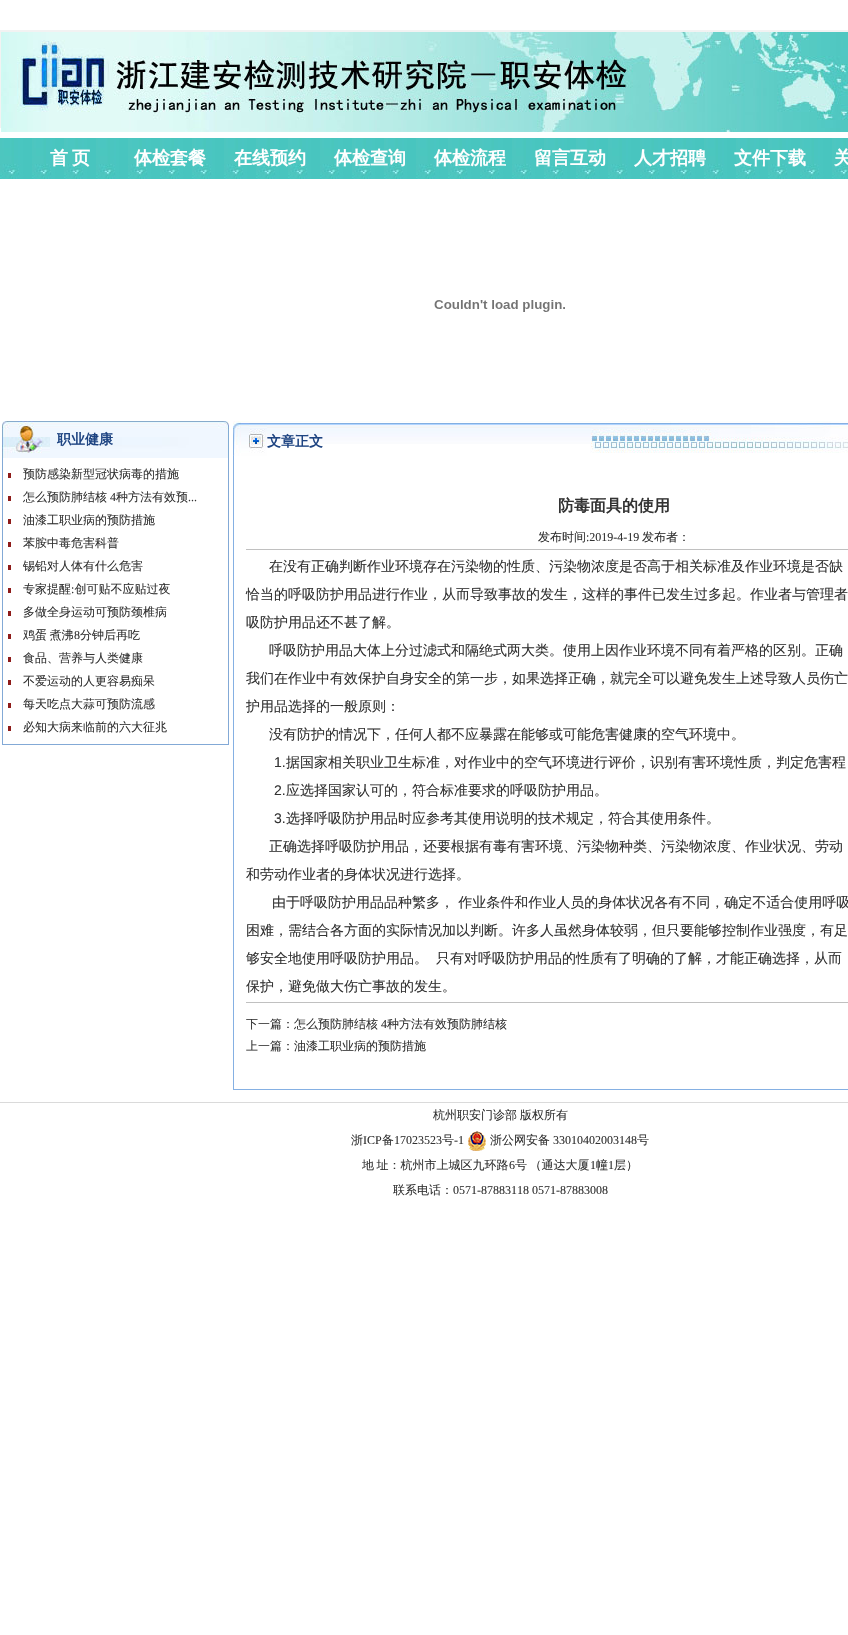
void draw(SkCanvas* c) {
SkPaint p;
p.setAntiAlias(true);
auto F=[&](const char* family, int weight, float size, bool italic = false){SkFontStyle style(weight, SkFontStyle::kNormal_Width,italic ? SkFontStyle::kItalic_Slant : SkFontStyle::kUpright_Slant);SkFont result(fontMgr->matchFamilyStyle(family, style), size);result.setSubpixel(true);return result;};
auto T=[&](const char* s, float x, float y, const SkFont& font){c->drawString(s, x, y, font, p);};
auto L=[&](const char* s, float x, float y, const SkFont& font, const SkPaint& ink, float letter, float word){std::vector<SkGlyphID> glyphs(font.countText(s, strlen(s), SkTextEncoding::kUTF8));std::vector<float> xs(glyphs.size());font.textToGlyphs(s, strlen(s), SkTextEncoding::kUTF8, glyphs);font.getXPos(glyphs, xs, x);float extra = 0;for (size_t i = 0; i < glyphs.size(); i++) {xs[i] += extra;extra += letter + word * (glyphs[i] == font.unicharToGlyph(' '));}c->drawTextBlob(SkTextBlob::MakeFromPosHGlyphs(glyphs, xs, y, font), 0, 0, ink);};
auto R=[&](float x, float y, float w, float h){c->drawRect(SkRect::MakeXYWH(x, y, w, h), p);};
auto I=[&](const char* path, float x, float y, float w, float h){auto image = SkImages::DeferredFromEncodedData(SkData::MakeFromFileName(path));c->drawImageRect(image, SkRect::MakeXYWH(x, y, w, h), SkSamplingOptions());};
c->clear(0xffffffff);
p.setColor(0xfff2f2f2);
R(0,30,848,98);
I("1.png",1,32,847,100);
I("2.png",0,138,848,41);
auto f1 = F("WenQuanYi Zen Hei",700,18);
p.setColor(0xffffffff);
T("首",50,164,f1);
T("页",72,164,f1);
T("体检套餐",134,164,f1);
T("在线预约",234,164,f1);
T("体检查询",334,164,f1);
T("体检流程",434,164,f1);
T("留言互动",534,164,f1);
T("人才招聘",634,164,f1);
T("文件下载",734,164,f1);
T("关",834,164,f1);
I("3.png",434,300,131,12);
I("4.png",2,421,227,37);
auto f2 = F("WenQuanYi Zen Hei",700,14);
p.setColor(0xff1e4482);
T("职业健康",57,444,f2);
p.setColor(0xff83a9d6);
R(228,458,1,287);
R(2,744,227,1);
R(2,458,1,287);
p.setColor(0xff8e1b19);
R(8,473,3,5);
auto f3 = F("WenQuanYi Zen Hei",500,12);
p.setColor(0xff333333);
T("预防感染新型冠状病毒的措施",23,478,f3);
p.setColor(0xff8e1b19);
R(8,496,3,5);
p.setColor(0xff333333);
T("怎么预防肺结核",23,501,f3);
auto f4 = F("Liberation Serif",400,12);
T("4",110,501,f4);
T("种方法有效预",116,501,f3);
T("...",188,501,f4);
p.setColor(0xff8e1b19);
R(8,519,3,5);
p.setColor(0xff333333);
T("油漆工职业病的预防措施",23,524,f3);
p.setColor(0xff8e1b19);
R(8,542,3,5);
p.setColor(0xff333333);
T("苯胺中毒危害科普",23,547,f3);
p.setColor(0xff8e1b19);
R(8,565,3,5);
p.setColor(0xff333333);
T("锡铅对人体有什么危害",23,570,f3);
T("专家提醒 创可贴不应贴过夜",23,593,f3);
p.setColor(0xff8e1b19);
R(8,588,3,5);
p.setColor(0xff333333);
T(":",71,593,f4);
p.setColor(0xff8e1b19);
R(8,611,3,5);
p.setColor(0xff333333);
T("多做全身运动可预防颈椎病",23,616,f3);
p.setColor(0xff8e1b19);
R(8,634,3,5);
p.setColor(0xff333333);
L("鸡蛋 煮沸",23,639,f3,p,0,-1);
T("8",74,639,f4);
T("分钟后再吃",80,639,f3);
p.setColor(0xff8e1b19);
R(8,657,3,5);
p.setColor(0xff333333);
T("食品、营养与人类健康",23,662,f3);
p.setColor(0xff8e1b19);
R(8,680,3,5);
p.setColor(0xff333333);
T("不爱运动的人更容易痴呆",23,685,f3);
p.setColor(0xff8e1b19);
R(8,703,3,5);
p.setColor(0xff333333);
T("每天吃点大蒜可预防流感",23,708,f3);
p.setColor(0xff8e1b19);
R(8,726,3,5);
p.setColor(0xff333333);
T("必知大病来临前的六大征兆",23,731,f3);
I("5.png",233,421,34,35);
I("6.png",267,421,323,23);
p.setColor(0xff1e4482);
T("文章正文",267,446,f2);
I("7.png",590,421,258,32);
p.setColor(0xff85b0e3);
R(233,1089,615,1);
R(233,456,1,634);
auto f5 = F("WenQuanYi Zen Hei",700,16);
p.setColor(0xff333333);
T("防毒面具的使用",558,511,f5);
p.setColor(0xffc0c0c0);
R(246,549,602,1);
p.setColor(0xff333333);
T("发布时间",538,541,f3);
T(":2019-4-19",586,541,f4);
T("发布者：",642,541,f3);
auto f6 = F("WenQuanYi Zen Hei",500,14);
T("在没有正确判断作业环境存在污染物的性质、污染物浓度是否高于相关标准及作业环境是否缺",269,571,f6);
T("恰当的呼吸防护用品进行作业，从而导致事故的发生，这样的事件已发生过多起。作业者与管理者",246,599,f6);
T("吸防护用品还不甚了解。",246,627,f6);
T("呼吸防护用品大体上分过滤式和隔绝式两大类。使用上因作业环境不同有着严格的区别。正确",269,655,f6);
T("我们在作业中有效保护自身安全的第一步，如果选择正确，就完全可以避免发生上述导致人员伤亡",246,683,f6);
T("护用品选择的一般原则：",246,711,f6);
T("没有防护的情况下，任何人都不应暴露在能够或可能危害健康的空气环境中。",269,739,f6);
auto f7 = F("Liberation Sans",400,14);
T("1.",274,767,f7);
T("据国家相关职业卫生标准，对作业中的空气环境进行评价，识别有害环境性质，判定危害程",286,767,f6);
T("2.",274,795,f7);
T("应选择国家认可的，符合标准要求的呼吸防护用品。",286,795,f6);
T("3.",274,823,f7);
T("选择呼吸防护用品时应参考其使用说明的技术规定，符合其使用条件。",286,823,f6);
T("正确选择呼吸防护用品，还要根据有毒有害环境、污染物种类、污染物浓度、作业状况、劳动",269,851,f6);
T("和劳动作业者的身体状况进行选择。",246,879,f6);
T("由于呼吸防护用品品种繁多， 作业条件和作业人员的身体状况各有不同，确定不适合使用呼吸",272,907,f6);
T("困难，需结合各方面的实际情况加以判断。许多人虽然身体较弱，但只要能够控制作业强度，有足",246,935,f6);
T("够安全地使用呼吸防护用品。",246,963,f6);
T("只有对呼吸防护用品的性质有了明确的了解，才能正确选择，从而",436,963,f6);
T("保护，避免做大伤亡事故的发生。",246,991,f6);
p.setColor(0xffc0c0c0);
R(246,1002,602,1);
p.setColor(0xff333333);
T("下一篇：怎么预防肺结核",246,1028,f3);
T("4",381,1028,f4);
T("种方法有效预防肺结核",387,1028,f3);
T("上一篇：油漆工职业病的预防措施",246,1050,f3);
p.setColor(0xffdadada);
R(0,1102,848,1);
p.setColor(0xff333333);
T("杭州职安门诊部",433,1119,f3);
T("版权所有",520,1119,f3);
T("浙",351,1144,f3);
T("ICP",363,1144,f4);
T("备",382,1144,f3);
T("17023523",394,1144,f4);
T("号",442,1144,f3);
T("-1",454,1144,f4);
I("8.png",468,1131,18,20);
T("浙公网安备",490,1144,f3);
T("33010402003148",553,1144,f4);
T("号",637,1144,f3);
L("地 址：杭州市上城区九环路",362,1169,f3,p,0,-1);
T("6",509,1169,f4);
L("号 （通达大厦",515,1169,f3,p,0,-1);
T("1",590,1169,f4);
T("幢",596,1169,f3);
T("1",608,1169,f4);
T("层）",614,1169,f3);
T("联系电话：",393,1194,f3);
T("0571-87883118 0571-87883008",453,1194,f4);
}
